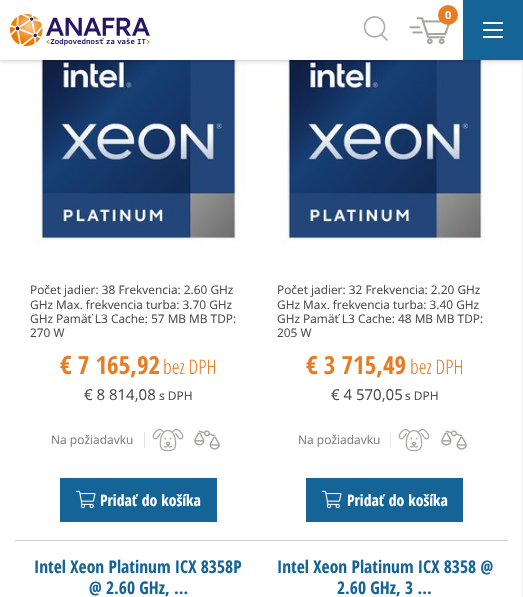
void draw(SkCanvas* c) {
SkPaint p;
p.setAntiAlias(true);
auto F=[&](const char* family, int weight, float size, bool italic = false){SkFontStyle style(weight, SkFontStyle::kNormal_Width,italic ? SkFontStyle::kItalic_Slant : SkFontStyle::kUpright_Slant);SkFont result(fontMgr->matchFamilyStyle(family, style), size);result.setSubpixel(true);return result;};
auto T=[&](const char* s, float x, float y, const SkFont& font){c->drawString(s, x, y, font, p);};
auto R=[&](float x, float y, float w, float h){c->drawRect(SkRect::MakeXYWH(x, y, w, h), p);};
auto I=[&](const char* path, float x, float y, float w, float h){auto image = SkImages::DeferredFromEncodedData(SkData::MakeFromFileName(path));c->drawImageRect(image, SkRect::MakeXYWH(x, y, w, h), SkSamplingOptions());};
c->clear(0xffffffff);
I("4.png",30,60,217,190);
I("8.png",277,60,216,190);
p.setColor(0x4d000000);
p.setMaskFilter(SkMaskFilter::MakeBlur(kNormal_SkBlurStyle, 2.5));
c->drawRect(SkRect::MakeXYWH(0,0,523,60),p);
p.setMaskFilter(nullptr);
p.setColor(0xffffffff);
R(0,0,463,60);
p.setColor(0x33000000);
p.setMaskFilter(SkMaskFilter::MakeBlur(kNormal_SkBlurStyle, 1));
c->drawRect(SkRect::MakeXYWH(523,2,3,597),p);
p.setMaskFilter(nullptr);
p.setColor(0xff146498);
R(463,0,60,60);
p.setColor(0xffffffff);
R(483,22,20,2);
R(483,29,20,2);
R(483,36,20,2);
I("1.png",10,14,140,32);
I("2.png",363,16,25,25);
I("3.png",409,17,41,28);
p.setColor(0xffe87c23);
c->drawCircle(448,15,10,p);
auto f1 = F("Open Sans",700,11);
p.setColor(0xffffffff);
T("0",445,19,f1);
auto f2 = F("Open Sans",400,11.9);
p.setColor(0xff4d4c4c);
T("Počet jadier: 38 Frekvencia: 2.60 GHz",30,294,f2);
T("GHz Max. frekvencia turba: 3.70 GHz",30,309,f2);
T("GHz Pamäť L3 Cache: 57 MB MB TDP:",30,323,f2);
T("270 W",30,337,f2);
auto f3 = F("Open Sans Condensed",700,25);
p.setColor(0xffe87c23);
T("€ 7 165,92",60,374,f3);
auto f4 = F("Open Sans Condensed",300,20);
T("bez DPH",163,374,f4);
auto f5 = F("Open Sans",400,15);
p.setColor(0xff4d4c4c);
T("€ 8 814,08",84,400,f5);
auto f6 = F("Open Sans",400,12);
T("s DPH",159,400,f6);
p.setColor(0xffe8e6e4);
R(144,432,1,16);
p.setColor(0xff7e7e7d);
T("Na požiadavku",51,444,f6);
I("5.png",152,428,32,24);
I("6.png",194,430,26,20);
p.setColor(0xff146498);
R(60,478,157,44);
I("7.png",76,490,20,19);
auto f7 = F("Open Sans Condensed",700,15.75);
p.setColor(0xffffffff);
T("Pridať do košíka",100,506,f7);
p.setColor(0xff4d4c4c);
T("Počet jadier: 32 Frekvencia: 2.20 GHz",277,294,f2);
T("GHz Max. frekvencia turba: 3.40 GHz",277,309,f2);
T("GHz Pamäť L3 Cache: 48 MB MB TDP:",277,323,f2);
T("205 W",277,337,f2);
p.setColor(0xffe87c23);
T("€ 3 715,49",306,374,f3);
T("bez DPH",410,374,f4);
p.setColor(0xff4d4c4c);
T("€ 4 570,05",331,400,f5);
T("s DPH",405,400,f6);
p.setColor(0xffe8e6e4);
R(390,432,1,16);
p.setColor(0xff7e7e7d);
T("Na požiadavku",298,444,f6);
I("5.png",398,428,32,24);
I("6.png",441,430,26,20);
p.setColor(0xff146498);
R(306,478,157,44);
I("7.png",322,490,20,19);
p.setColor(0xffffffff);
T("Pridať do košíka",347,506,f7);
p.setColor(0xffd0d0d0);
R(15,540,493,1);
auto f8 = F("Open Sans Condensed",700,17.5);
p.setColor(0xff146498);
T("Intel Xeon Platinum ICX 8358P",34,573,f8);
T("@ 2.60 GHz, ...",89,594,f8);
T("Intel Xeon Platinum ICX 8358 @",277,573,f8);
T("2.60 GHz, 3 ...",337,594,f8);
}
